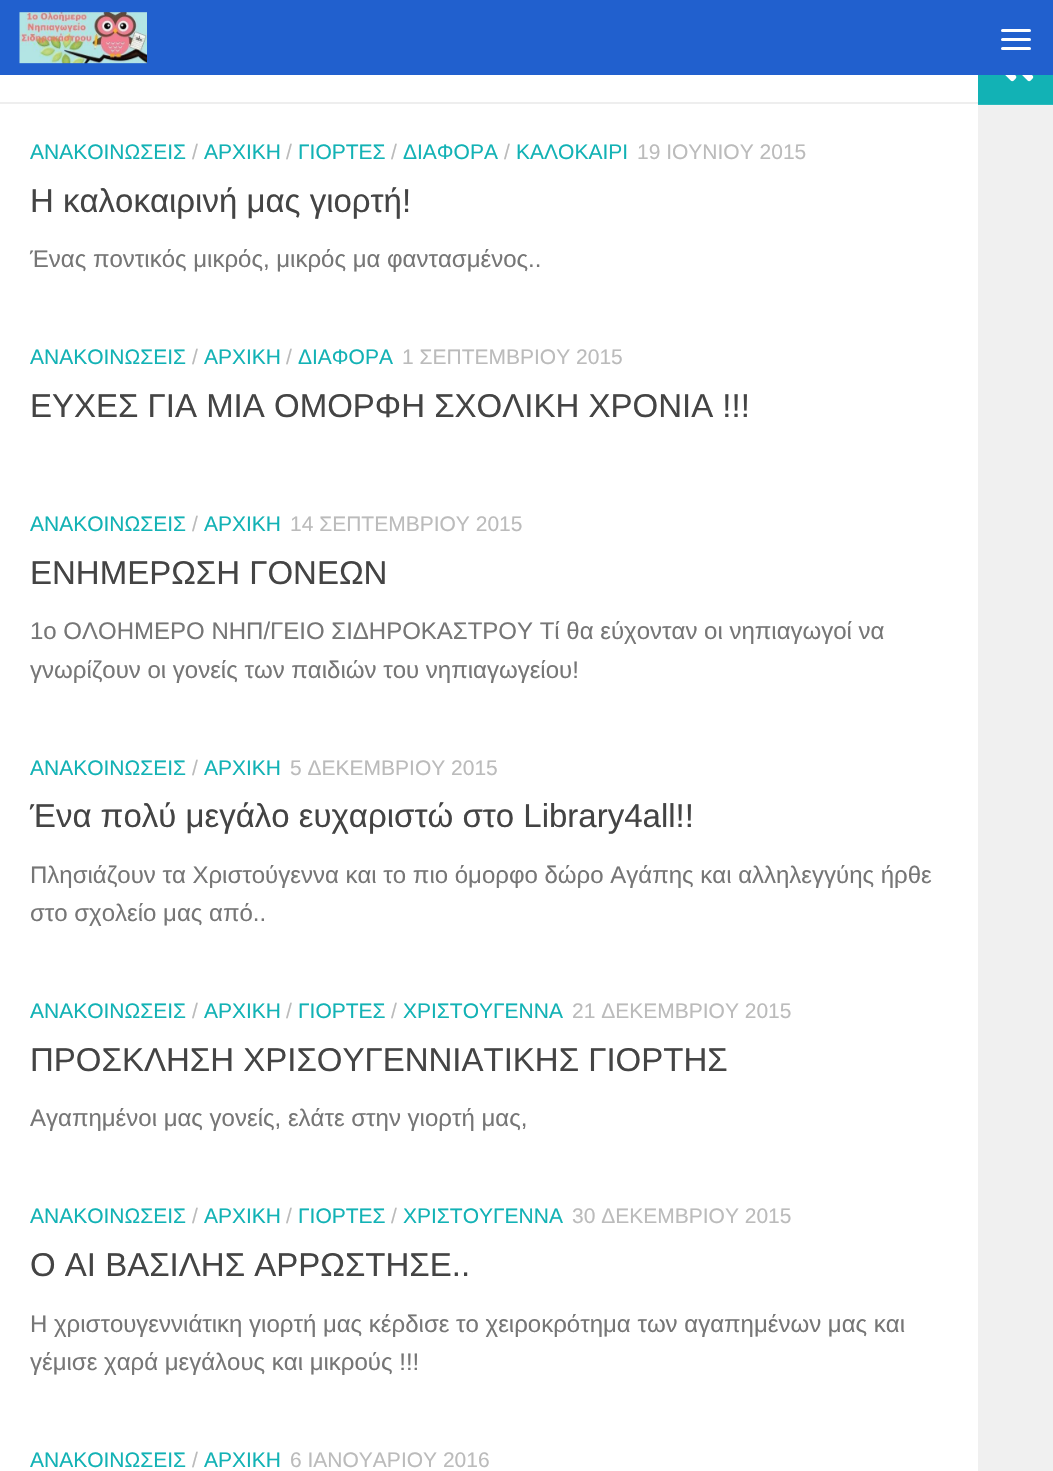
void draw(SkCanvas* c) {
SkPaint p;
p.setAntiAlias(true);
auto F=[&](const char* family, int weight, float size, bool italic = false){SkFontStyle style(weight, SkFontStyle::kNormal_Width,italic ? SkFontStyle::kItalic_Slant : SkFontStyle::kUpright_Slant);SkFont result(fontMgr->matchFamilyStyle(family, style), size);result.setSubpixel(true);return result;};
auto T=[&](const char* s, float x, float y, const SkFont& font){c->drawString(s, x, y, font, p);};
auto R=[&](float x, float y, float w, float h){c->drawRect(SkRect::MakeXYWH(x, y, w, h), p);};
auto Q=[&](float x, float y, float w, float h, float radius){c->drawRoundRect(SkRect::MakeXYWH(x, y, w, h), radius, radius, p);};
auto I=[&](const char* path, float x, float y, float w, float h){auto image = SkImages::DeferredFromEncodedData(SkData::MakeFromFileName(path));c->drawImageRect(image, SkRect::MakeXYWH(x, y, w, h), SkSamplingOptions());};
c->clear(0xffffffff);
p.setColor(0xff2160ce);
R(0,0,1053,75);
I("1.png",19,12,128,52);
p.setColor(0xffffffff);
Q(1001,29,30,3,1.5);
Q(1001,38,30,3,1.5);
Q(1001,47,30,3,1.5);
p.setColor(0xff12b2b5);
R(978,75,75,29);
p.setColor(0xff2ababc);
R(978,104,75,1);
I("2.png",1005,75,29,7);
p.setColor(0xffeeeeee);
R(0,102,978,2);
auto f1 = F("Liberation Sans",400,21);
p.setColor(0xff12b2b5);
T("ΑΝΑΚΟΙΝΩΣΕΙΣ",30,159,f1);
p.setColor(0xffbbbbbb);
T("/",192,159,f1);
p.setColor(0xff12b2b5);
T("ΑΡΧΙΚΗ",204,159,f1);
p.setColor(0xffbbbbbb);
T("/",286,159,f1);
p.setColor(0xff12b2b5);
T("ΓΙΟΡΤΕΣ",298,159,f1);
p.setColor(0xffbbbbbb);
T("/",391,159,f1);
p.setColor(0xff12b2b5);
T("ΔΙΑΦΟΡΑ",403,159,f1);
p.setColor(0xffbbbbbb);
T("/",504,159,f1);
p.setColor(0xff12b2b5);
T("ΚΑΛΟΚΑΙΡΙ",516,159,f1);
p.setColor(0xffbbbbbb);
T("19 ΙΟΥΝΙΟΥ 2015",637,159,f1);
auto f2 = F("Liberation Sans",400,33);
p.setColor(0xff444444);
T("Η καλοκαιρινή μας γιορτή!",30,212,f2);
auto f3 = F("Liberation Sans",400,24);
p.setColor(0xff767676);
T("Ένας ποντικός μικρός, μικρός μα φαντασμένος..",30,267,f3);
p.setColor(0xff12b2b5);
T("ΑΝΑΚΟΙΝΩΣΕΙΣ",30,364,f1);
p.setColor(0xffbbbbbb);
T("/",192,364,f1);
p.setColor(0xff12b2b5);
T("ΑΡΧΙΚΗ",204,364,f1);
p.setColor(0xffbbbbbb);
T("/",286,364,f1);
p.setColor(0xff12b2b5);
T("ΔΙΑΦΟΡΑ",298,364,f1);
p.setColor(0xffbbbbbb);
T("1 ΣΕΠΤΕΜΒΡΙΟΥ 2015",402,364,f1);
p.setColor(0xff444444);
T("ΕΥΧΕΣ ΓΙΑ ΜΙΑ ΟΜΟΡΦΗ ΣΧΟΛΙΚΗ ΧΡΟΝΙΑ !!!",30,417,f2);
p.setColor(0xff12b2b5);
T("ΑΝΑΚΟΙΝΩΣΕΙΣ",30,531,f1);
p.setColor(0xffbbbbbb);
T("/",192,531,f1);
p.setColor(0xff12b2b5);
T("ΑΡΧΙΚΗ",204,531,f1);
p.setColor(0xffbbbbbb);
T("14 ΣΕΠΤΕΜΒΡΙΟΥ 2015",290,531,f1);
p.setColor(0xff444444);
T("ΕΝΗΜΕΡΩΣΗ ΓΟΝΕΩΝ",30,584,f2);
p.setColor(0xff767676);
T("1ο ΟΛΟΗΜΕΡΟ ΝΗΠ/ΓΕΙΟ ΣΙΔΗΡΟΚΑΣΤΡΟΥ Τί θα εύχονταν οι νηπιαγωγοί να",30,639,f3);
T("γνωρίζουν οι γονείς των παιδιών του νηπιαγωγείου!",30,678,f3);
p.setColor(0xff12b2b5);
T("ΑΝΑΚΟΙΝΩΣΕΙΣ",30,775,f1);
p.setColor(0xffbbbbbb);
T("/",192,775,f1);
p.setColor(0xff12b2b5);
T("ΑΡΧΙΚΗ",204,775,f1);
p.setColor(0xffbbbbbb);
T("5 ΔΕΚΕΜΒΡΙΟΥ 2015",290,775,f1);
p.setColor(0xff444444);
T("Ένα πολύ μεγάλο ευχαριστώ στο Library4all!!",30,827,f2);
p.setColor(0xff767676);
T("Πλησιάζουν τα Χριστούγεννα και το πιο όμορφο δώρο Αγάπης και αλληλεγγύης ήρθε",30,883,f3);
T("στο σχολείο μας από..",30,921,f3);
p.setColor(0xff12b2b5);
T("ΑΝΑΚΟΙΝΩΣΕΙΣ",30,1018,f1);
p.setColor(0xffbbbbbb);
T("/",192,1018,f1);
p.setColor(0xff12b2b5);
T("ΑΡΧΙΚΗ",204,1018,f1);
p.setColor(0xffbbbbbb);
T("/",286,1018,f1);
p.setColor(0xff12b2b5);
T("ΓΙΟΡΤΕΣ",298,1018,f1);
p.setColor(0xffbbbbbb);
T("/",391,1018,f1);
p.setColor(0xff12b2b5);
T("ΧΡΙΣΤΟΥΓΕΝΝΑ",403,1018,f1);
p.setColor(0xffbbbbbb);
T("21 ΔΕΚΕΜΒΡΙΟΥ 2015",572,1018,f1);
p.setColor(0xff444444);
T("ΠΡΟΣΚΛΗΣΗ ΧΡΙΣΟΥΓΕΝΝΙΑΤΙΚΗΣ ΓΙΟΡΤΗΣ",30,1071,f2);
p.setColor(0xff767676);
T("Αγαπημένοι μας γονείς, ελάτε στην γιορτή μας,",30,1126,f3);
p.setColor(0xff12b2b5);
T("ΑΝΑΚΟΙΝΩΣΕΙΣ",30,1223,f1);
p.setColor(0xffbbbbbb);
T("/",192,1223,f1);
p.setColor(0xff12b2b5);
T("ΑΡΧΙΚΗ",204,1223,f1);
p.setColor(0xffbbbbbb);
T("/",286,1223,f1);
p.setColor(0xff12b2b5);
T("ΓΙΟΡΤΕΣ",298,1223,f1);
p.setColor(0xffbbbbbb);
T("/",391,1223,f1);
p.setColor(0xff12b2b5);
T("ΧΡΙΣΤΟΥΓΕΝΝΑ",403,1223,f1);
p.setColor(0xffbbbbbb);
T("30 ΔΕΚΕΜΒΡΙΟΥ 2015",572,1223,f1);
p.setColor(0xff444444);
T("Ο ΑΙ ΒΑΣΙΛΗΣ ΑΡΡΩΣΤΗΣΕ..",30,1276,f2);
p.setColor(0xff767676);
T("Η χριστουγεννιάτικη γιορτή μας κέρδισε το χειροκρότημα των αγαπημένων μας και",30,1332,f3);
T("γέμισε χαρά μεγάλους και μικρούς !!!",30,1370,f3);
p.setColor(0xff12b2b5);
T("ΑΝΑΚΟΙΝΩΣΕΙΣ",30,1467,f1);
p.setColor(0xffbbbbbb);
T("/",192,1467,f1);
p.setColor(0xff12b2b5);
T("ΑΡΧΙΚΗ",204,1467,f1);
p.setColor(0xffbbbbbb);
T("6 ΙΑΝΟΥΑΡΙΟΥ 2016",290,1467,f1);
p.setColor(0xfff0f0f0);
R(978,106,75,1365);
p.setColor(0xfff2f2f2);
R(978,105,75,1);
}
